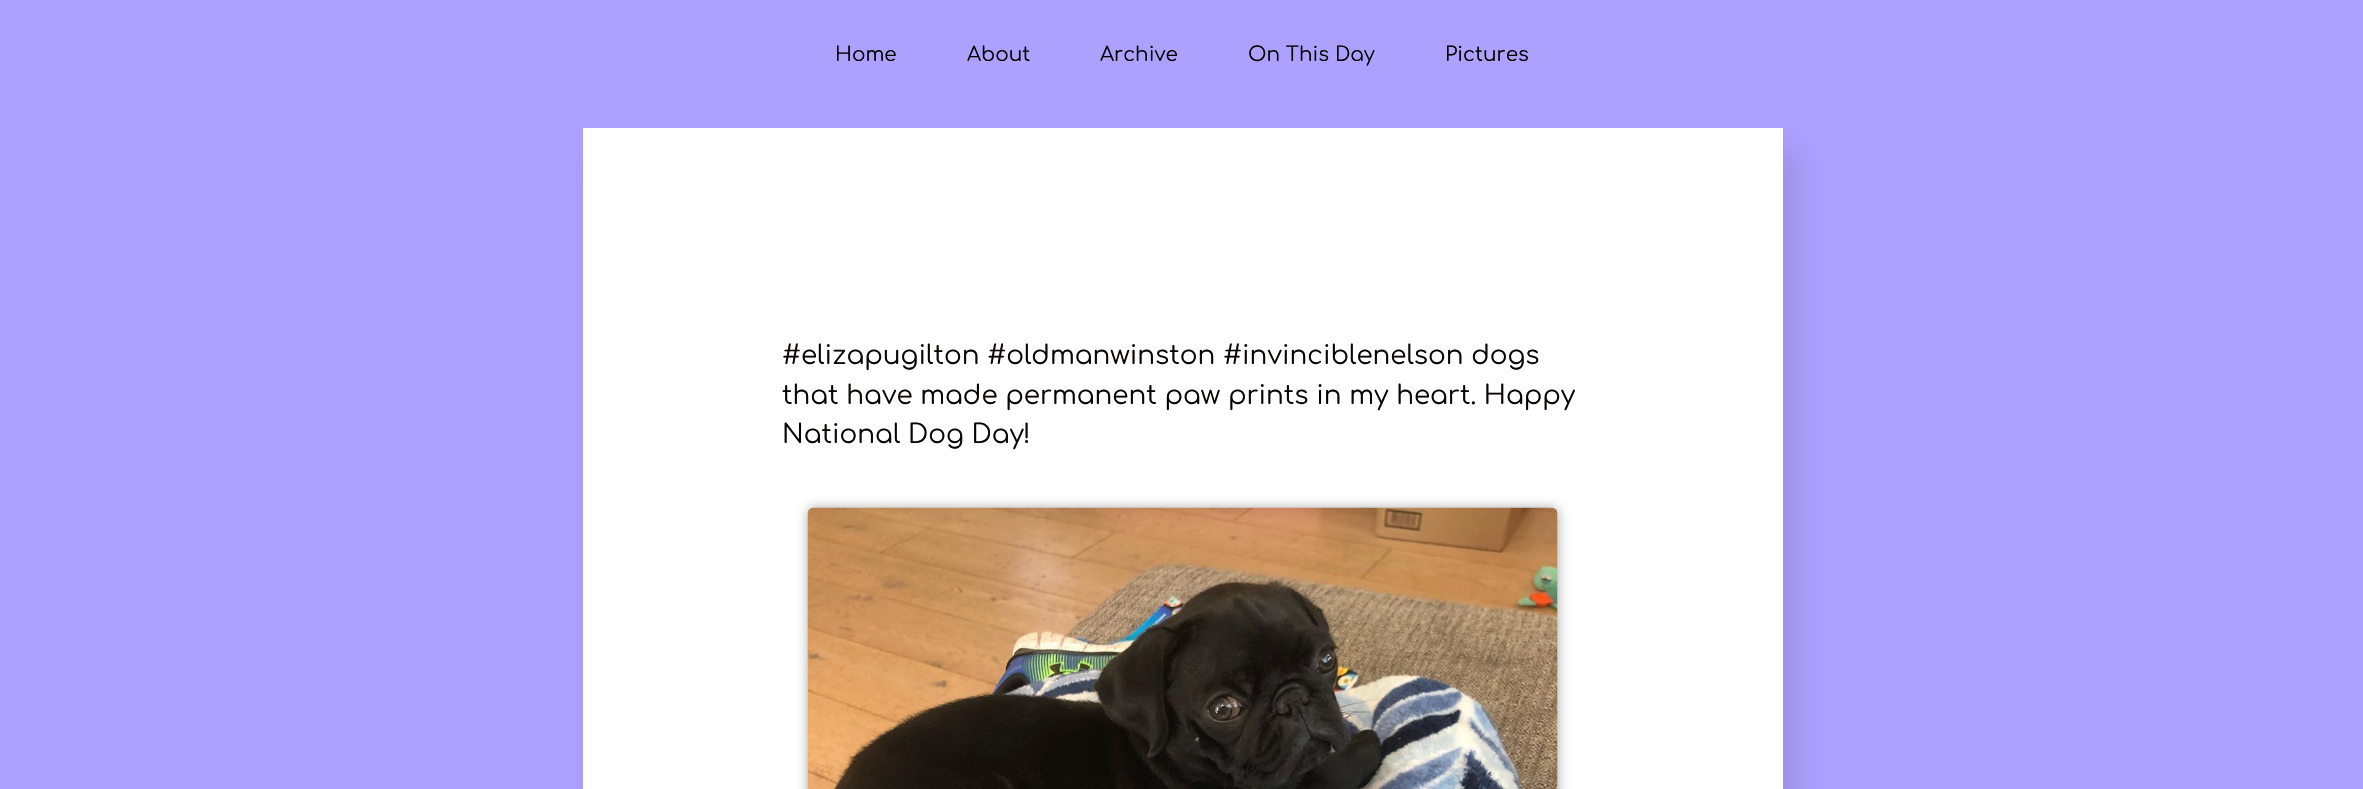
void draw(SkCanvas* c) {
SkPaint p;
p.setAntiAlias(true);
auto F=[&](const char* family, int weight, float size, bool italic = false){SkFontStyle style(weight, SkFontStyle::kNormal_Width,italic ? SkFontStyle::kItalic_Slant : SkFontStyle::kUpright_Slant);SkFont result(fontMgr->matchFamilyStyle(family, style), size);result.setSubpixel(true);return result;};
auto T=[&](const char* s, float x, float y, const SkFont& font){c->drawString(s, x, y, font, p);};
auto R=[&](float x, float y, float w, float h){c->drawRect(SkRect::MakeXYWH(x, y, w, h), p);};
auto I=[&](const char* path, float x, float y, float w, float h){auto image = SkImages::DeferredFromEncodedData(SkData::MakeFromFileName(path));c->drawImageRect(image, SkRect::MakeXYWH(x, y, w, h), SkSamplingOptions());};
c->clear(0xffaca1ff);
auto f1 = F("Comfortaa",400,20);
p.setColor(0xff000000);
T("Home",835,61,f1);
T("About",967,61,f1);
T("Archive",1100,61,f1);
T("On This Day",1248,61,f1);
T("Pictures",1445,61,f1);
p.setColor(0x1a000000);
p.setMaskFilter(SkMaskFilter::MakeBlur(kNormal_SkBlurStyle, 15));
c->drawRect(SkRect::MakeXYWH(598,150,1200,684),p);
p.setMaskFilter(nullptr);
p.setColor(0xffffffff);
R(583,128,1200,661);
auto f2 = F("Comfortaa",400,26.25);
p.setColor(0xff0b0404);
T("#elizapugilton #oldmanwinston #invinciblenelson dogs",782,364,f2);
T("that have made permanent paw prints in my heart. Happy",782,404,f2);
T("National Dog Day!",782,443,f2);
p.setColor(0xffa9a9a9);
p.setMaskFilter(SkMaskFilter::MakeBlur(kNormal_SkBlurStyle, 6));
c->drawRoundRect(SkRect::MakeXYWH(808,508,750,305),6,6,p);
p.setMaskFilter(nullptr);
I("1.png",807,507,751,282);
}
